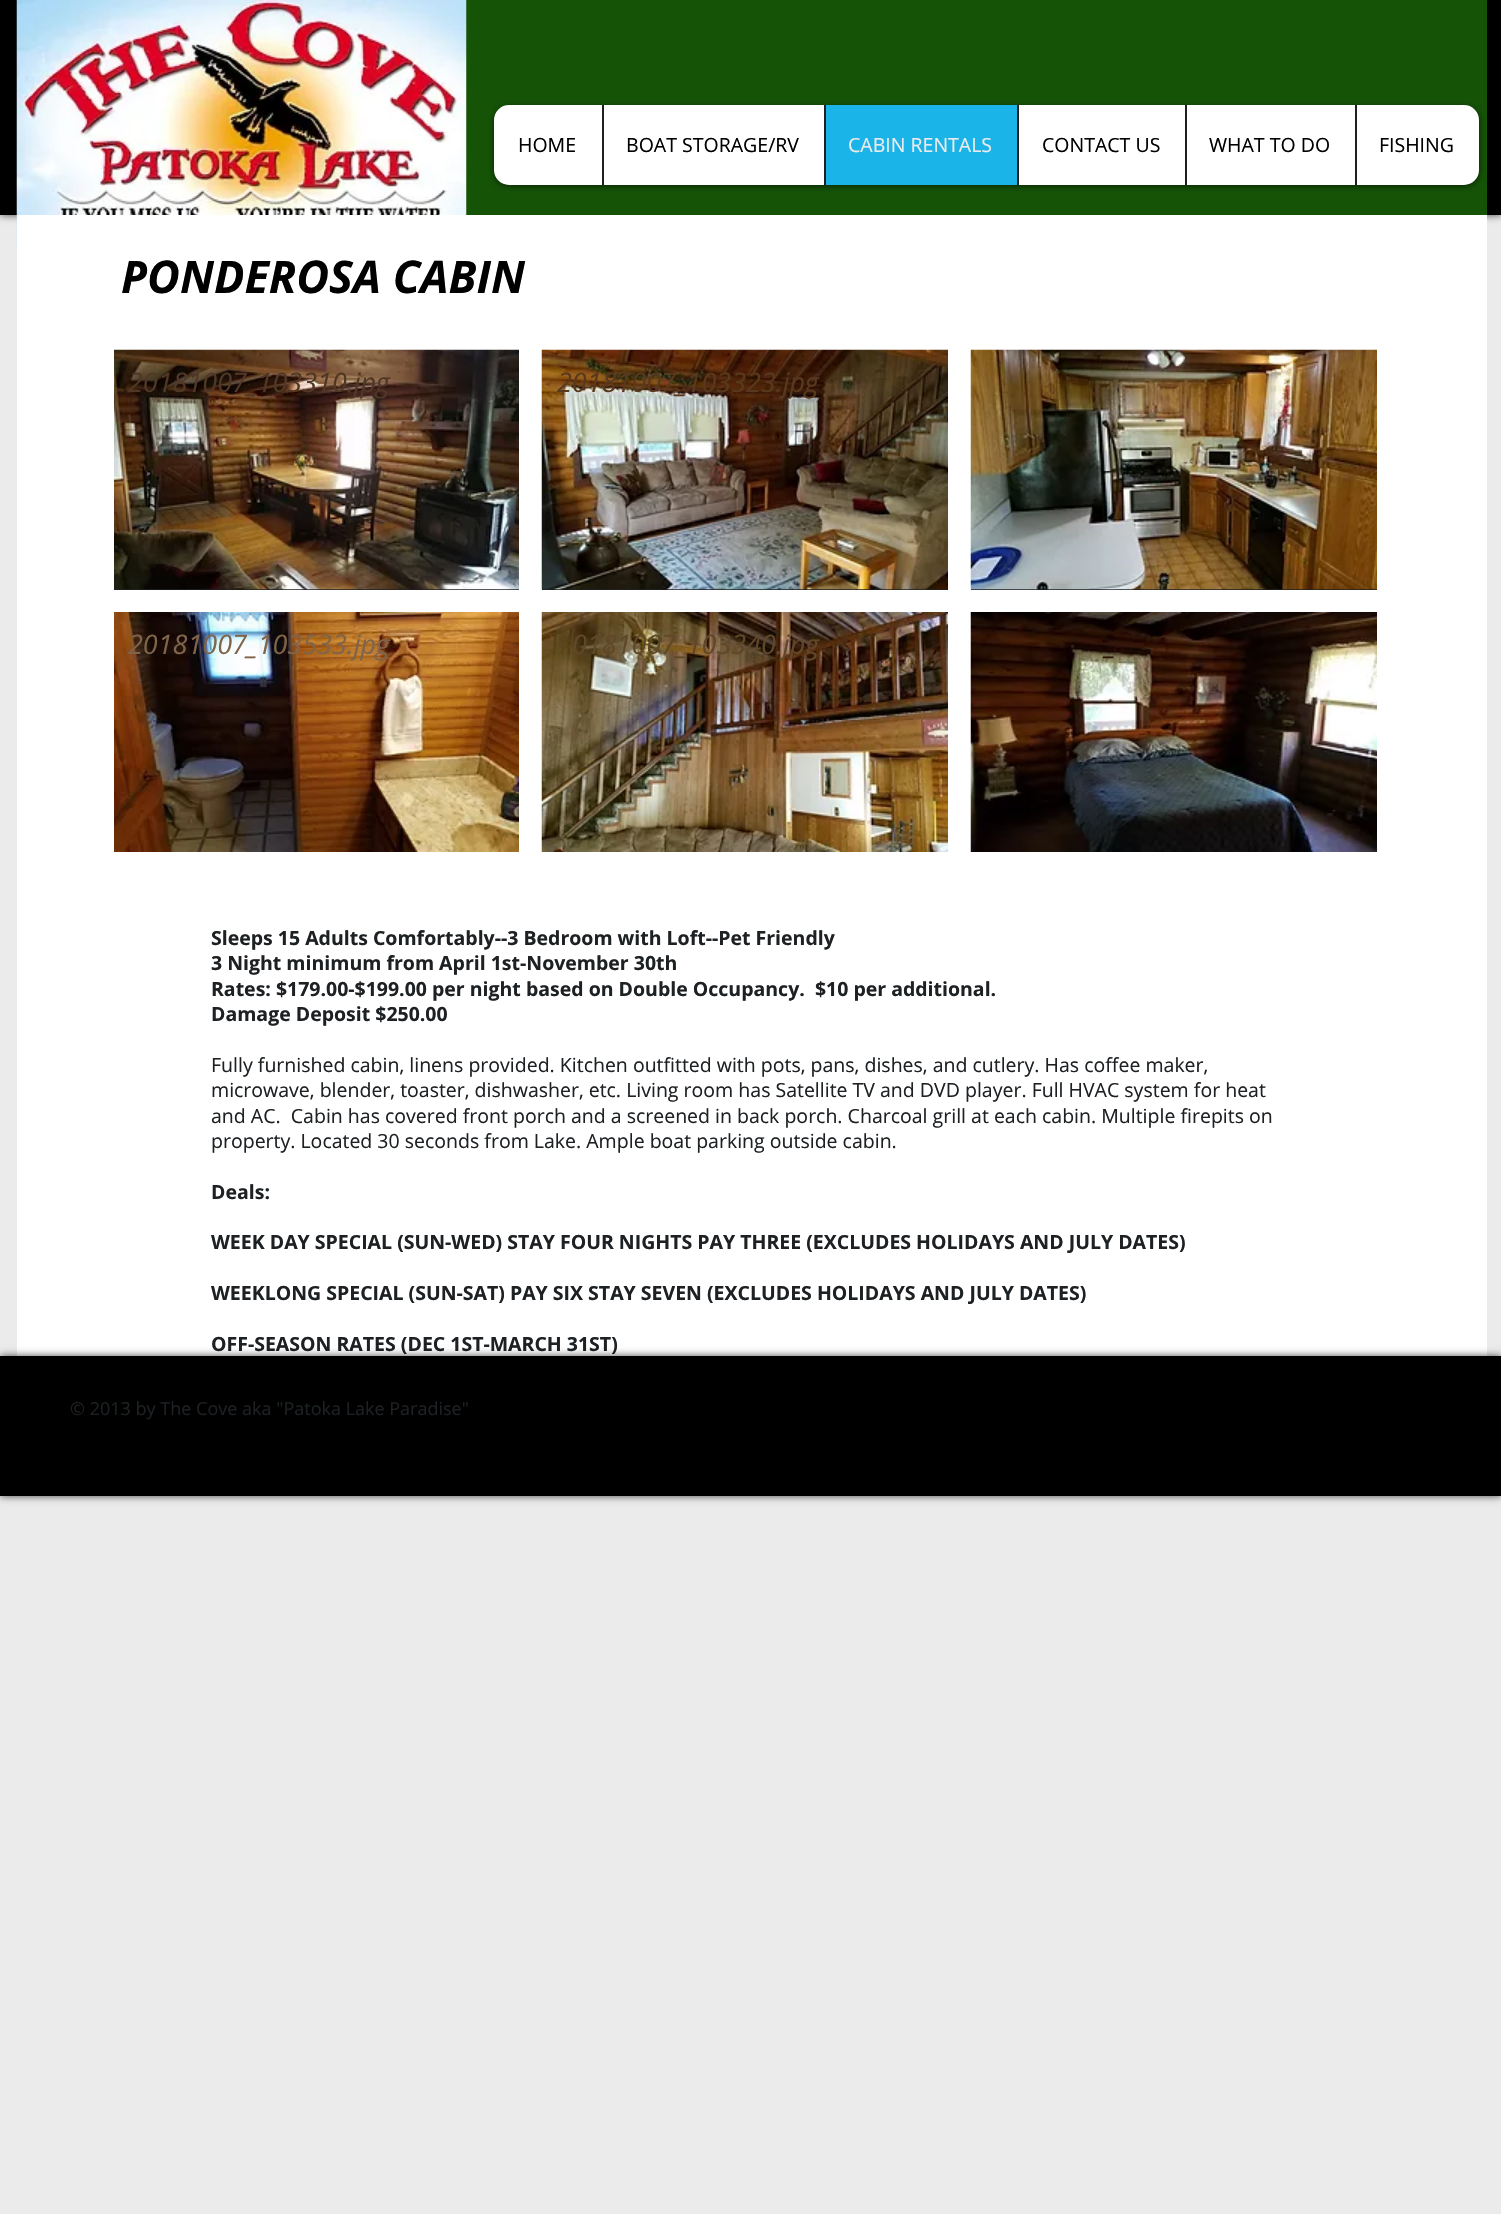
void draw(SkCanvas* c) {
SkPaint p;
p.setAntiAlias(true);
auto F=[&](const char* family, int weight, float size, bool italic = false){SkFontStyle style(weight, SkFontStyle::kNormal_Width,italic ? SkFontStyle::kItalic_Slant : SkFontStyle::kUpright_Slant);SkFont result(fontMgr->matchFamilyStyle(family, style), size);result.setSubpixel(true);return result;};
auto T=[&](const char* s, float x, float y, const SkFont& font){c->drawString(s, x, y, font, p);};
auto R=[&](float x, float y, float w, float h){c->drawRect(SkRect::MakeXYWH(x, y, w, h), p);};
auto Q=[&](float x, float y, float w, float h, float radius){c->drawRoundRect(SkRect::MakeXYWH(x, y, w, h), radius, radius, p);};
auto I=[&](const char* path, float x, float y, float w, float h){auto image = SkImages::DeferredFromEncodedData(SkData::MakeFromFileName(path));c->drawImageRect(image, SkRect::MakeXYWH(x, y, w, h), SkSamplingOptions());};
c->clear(0xffebebeb);
p.setColor(0xb3000000);
p.setMaskFilter(SkMaskFilter::MakeBlur(kNormal_SkBlurStyle, 4));
c->drawRect(SkRect::MakeXYWH(0,0,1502,215),p);
p.setMaskFilter(nullptr);
p.setColor(0xff000000);
R(0,0,1501,215);
p.setColor(0xff155307);
R(466,0,1021,215);
I("1.png",16,0,451,249);
p.setColor(0x99000000);
p.setMaskFilter(SkMaskFilter::MakeBlur(kNormal_SkBlurStyle, 3));
c->drawRoundRect(SkRect::MakeXYWH(494,107,985,79),15,15,p);
p.setMaskFilter(nullptr);
p.setColor(0xffffffff);
Q(494,105,985,80,15);
auto f1 = F("Open Sans",400,19.5);
p.setColor(0xff000000);
T("HOME",518,152,f1);
p.setColor(0xff1d2123);
R(602,105,2,80);
p.setColor(0xff000000);
T("BOAT STORAGE/RV",626,152,f1);
p.setColor(0xff1bb4e8);
R(826,105,191,80);
p.setColor(0xff1d2123);
R(824,105,2,80);
p.setColor(0xffebebeb);
T("CABIN RENTALS",848,152,f1);
p.setColor(0xff1d2123);
R(1017,105,2,80);
p.setColor(0xff000000);
T("CONTACT US",1042,152,f1);
p.setColor(0xff1d2123);
R(1185,105,2,80);
p.setColor(0xff000000);
T("WHAT TO DO",1209,152,f1);
p.setColor(0xff1d2123);
R(1355,105,2,80);
p.setColor(0xff000000);
T("FISHING",1379,152,f1);
p.setColor(0xffffffff);
R(17,215,1470,1141);
auto f2 = F("Open Sans",700,45,true);
p.setColor(0xff000000);
T("PONDEROSA CABIN",121,293,f2);
p.setColor(0xff1d2123);
R(114,589,405,1);
I("2.png",114,349,405,241);
auto f3 = F("Open Sans",400,27,true);
p.setColor(0xff503726);
T("20181007_103310.jpg",128,392,f3);
p.setColor(0xff1d2123);
R(542,589,406,1);
I("3.png",541,349,407,241);
p.setColor(0xff59391d);
T("20181007_103323.jpg",557,392,f3);
p.setColor(0xff1d2123);
R(971,589,406,1);
I("4.png",970,349,407,241);
I("5.png",114,612,405,240);
p.setColor(0xff7f644a);
T("20181007_103533.jpg",128,654,f3);
I("6.png",541,612,407,240);
p.setColor(0xff5f4829);
T("0181007_103340.jpg",572,654,f3);
I("7.png",970,612,407,240);
p.setColor(0xff2e1408);
T("_",1105,654,f3);
auto f4 = F("Open Sans",700,19.5);
p.setColor(0xff1d2123);
T("Sleeps 15 Adults Comfortably--3 Bedroom with Loft--Pet Friendly",211,945,f4);
T("3 Night minimum from April 1st-November 30th",211,970,f4);
T("Rates: $179.00-$199.00 per night based on Double Occupancy.  $10 per additional.",211,996,f4);
T("Damage Deposit $250.00",211,1021,f4);
T("Fully furnished cabin, linens provided. Kitchen outfitted with pots, pans, dishes, and cutlery. Has coffee maker,",211,1072,f1);
T("microwave, blender, toaster, dishwasher, etc. Living room has Satellite TV and DVD player. Full HVAC system for heat",211,1097,f1);
T("and AC.  Cabin has covered front porch and a screened in back porch. Charcoal grill at each cabin. Multiple firepits on",211,1123,f1);
T("property. Located 30 seconds from Lake. Ample boat parking outside cabin.",211,1148,f1);
T("Deals:",211,1199,f4);
T("WEEK DAY SPECIAL (SUN-WED) STAY FOUR NIGHTS PAY THREE (EXCLUDES HOLIDAYS AND JULY DATES)",211,1249,f4);
T("WEEKLONG SPECIAL (SUN-SAT) PAY SIX STAY SEVEN (EXCLUDES HOLIDAYS AND JULY DATES)",211,1300,f4);
T("OFF-SEASON RATES (DEC 1ST-MARCH 31ST)",211,1351,f4);
p.setColor(0xb3000000);
p.setMaskFilter(SkMaskFilter::MakeBlur(kNormal_SkBlurStyle, 4));
c->drawRect(SkRect::MakeXYWH(0,1356,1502,140),p);
p.setMaskFilter(nullptr);
p.setColor(0xff000000);
R(0,1356,1501,140);
auto f5 = F("Open Sans",400,18);
p.setColor(0xff1d2123);
T("© 2013 by The Cove aka \"Patoka Lake Paradise\"",70,1415,f5);
}
